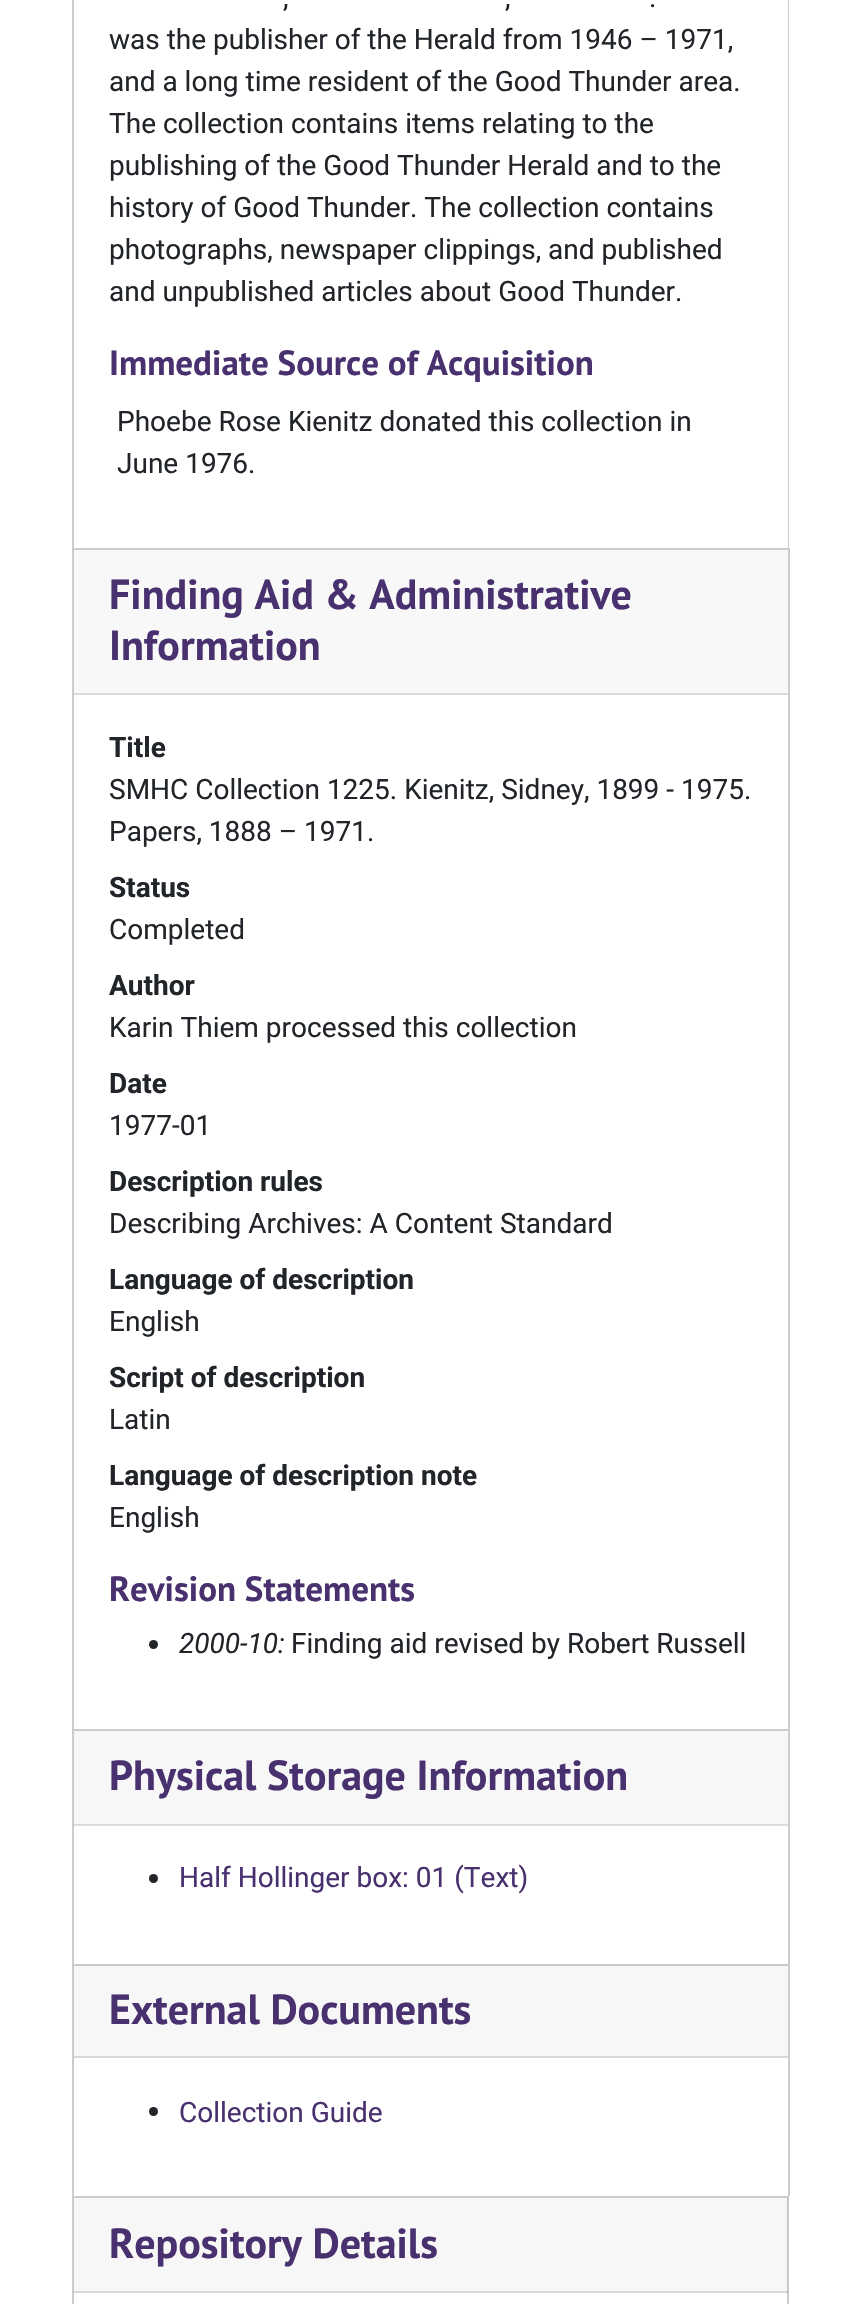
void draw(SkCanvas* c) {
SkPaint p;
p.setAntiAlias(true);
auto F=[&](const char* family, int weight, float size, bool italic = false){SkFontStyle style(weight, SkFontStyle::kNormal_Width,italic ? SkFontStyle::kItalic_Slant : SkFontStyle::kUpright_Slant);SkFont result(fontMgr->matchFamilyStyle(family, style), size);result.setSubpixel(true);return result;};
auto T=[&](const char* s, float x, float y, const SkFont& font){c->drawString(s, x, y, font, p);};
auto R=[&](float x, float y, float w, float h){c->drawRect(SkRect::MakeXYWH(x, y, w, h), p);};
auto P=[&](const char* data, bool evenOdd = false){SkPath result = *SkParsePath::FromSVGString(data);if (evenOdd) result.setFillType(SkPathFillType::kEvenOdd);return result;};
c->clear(0xffffffff);
p.setColor(0xfff7f7f7);
R(74,1966,714,90);
p.setColor(0xffe0e0e0);
R(74,1825,714,1);
p.setColor(0xffcccccc);
c->drawPath(P("M79-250h703c4 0 7 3 7 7v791h-717v-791c0-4 3-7 7-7zm0 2h703c3 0 6 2 6 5v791h-714v-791c0-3 2-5 5-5z",true),p);
auto f1 = F("Roboto",400,28);
p.setColor(0xff212529);
T(",",283,7,f1);
T(",",505,7,f1);
T(".",649,7,f1);
T("was the publisher of the Herald from 1946 – 1971,",109,49,f1);
T("and a long time resident of the Good Thunder area.",109,91,f1);
T("The collection contains items relating to the",109,133,f1);
T("publishing of the Good Thunder Herald and to the",109,175,f1);
T("history of Good Thunder. The collection contains",109,217,f1);
T("photographs, newspaper clippings, and published",109,259,f1);
T("and unpublished articles about Good Thunder.",109,301,f1);
auto f2 = F("PT Sans",700,35);
p.setColor(0xff49306e);
T("Immediate Source of Acquisition",109,375,f2);
p.setColor(0xff212529);
T("Phoebe Rose Kienitz donated this collection in",117,431,f1);
T("June 1976.",117,473,f1);
p.setColor(0xffcccccc);
R(72,548,717,2);
R(788,548,2,1181);
R(72,548,2,1181);
p.setColor(0xfff8f8f8);
R(74,550,714,143);
p.setColor(0xffd9d9d9);
R(74,693,714,2);
auto f3 = F("PT Sans",700,42);
p.setColor(0xff49306e);
T("Finding Aid & Administrative",109,609,f3);
T("Information",109,660,f3);
auto f4 = F("Roboto",700,28);
p.setColor(0xff212529);
T("Title",109,757,f4);
T("SMHC Collection 1225. Kienitz, Sidney, 1899 - 1975.",109,799,f1);
T("Papers, 1888 – 1971.",109,841,f1);
T("Status",109,897,f4);
T("Completed",109,939,f1);
T("Author",109,995,f4);
T("Karin Thiem processed this collection",109,1037,f1);
T("Date",109,1093,f4);
T("1977-01",109,1135,f1);
T("Description rules",109,1191,f4);
T("Describing Archives: A Content Standard",109,1233,f1);
T("Language of description",109,1289,f4);
T("English",109,1331,f1);
T("Script of description",109,1387,f4);
T("Latin",109,1429,f1);
T("Language of description note",109,1485,f4);
T("English",109,1527,f1);
p.setColor(0xff49306e);
T("Revision Statements",109,1601,f2);
p.setColor(0xff212529);
c->drawCircle(153.5,1644.5,4.5,p);
auto f5 = F("Roboto",400,28,true);
T("2000-10:",179,1653,f5);
T("Finding aid revised by Robert Russell",291,1653,f1);
p.setColor(0xffcccccc);
R(72,1729,717,2);
R(788,1729,2,235);
R(72,1729,2,235);
p.setColor(0xfff7f7f7);
R(74,1731,714,93);
p.setColor(0xffd9d9d9);
R(74,1824,714,1);
p.setColor(0xff49306e);
T("Physical Storage Information",109,1790,f3);
p.setColor(0xff212529);
c->drawCircle(153.5,1878.5,4.5,p);
p.setColor(0xff49306e);
T("Half Hollinger box: 01 (Text)",179,1887,f1);
p.setColor(0xffcccccc);
R(72,1964,717,1);
p.setColor(0xffc6c6c6);
R(74,1965,714,1);
p.setColor(0xffcccccc);
R(788,1964,2,232);
R(72,1964,2,232);
p.setColor(0xffd8d8d8);
R(74,2056,714,2);
p.setColor(0xff49306e);
T("External Documents",109,2024,f3);
p.setColor(0xff212529);
c->drawCircle(153.5,2111.5,4.5,p);
p.setColor(0xff49306e);
T("Collection Guide",179,2122,f1);
p.setStroke(true);
p.setStrokeWidth(2);
p.setColor(0xffcccccc);
c->drawRect(SkRect::MakeXYWH(73,2197,715,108),p);
p.setStroke(false);
p.setColor(0x08000000);
R(74,2198,714,95);
p.setColor(0x1f000000);
R(74,2291,714,2);
p.setColor(0xff49306e);
T("Repository Details",109,2258,f3);
}
